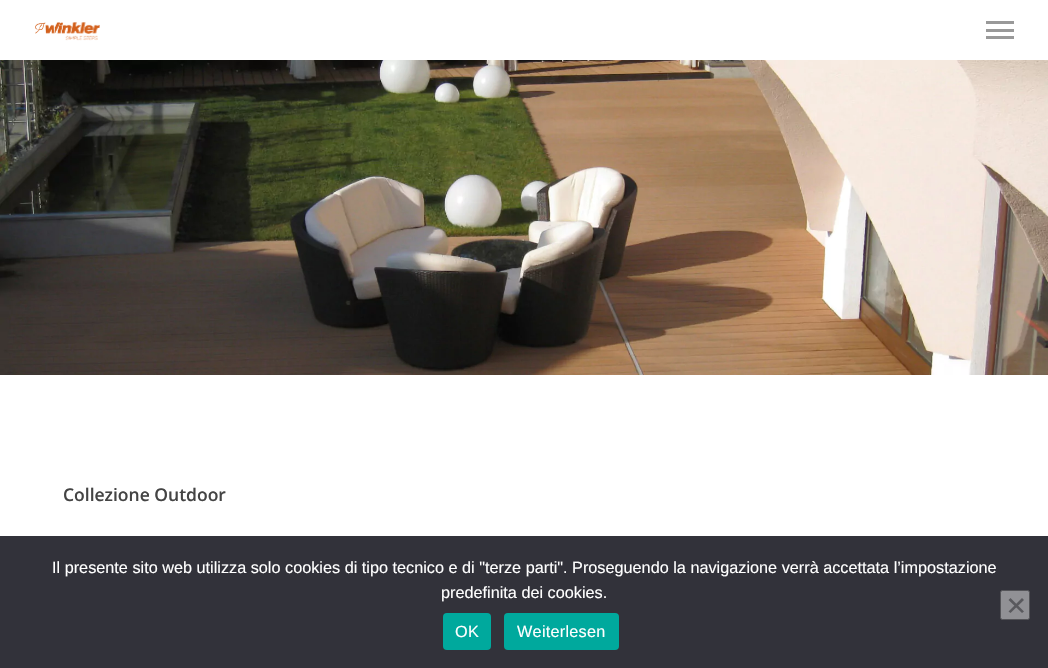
void draw(SkCanvas* c) {
SkPaint p;
p.setAntiAlias(true);
auto F=[&](const char* family, int weight, float size, bool italic = false){SkFontStyle style(weight, SkFontStyle::kNormal_Width,italic ? SkFontStyle::kItalic_Slant : SkFontStyle::kUpright_Slant);SkFont result(fontMgr->matchFamilyStyle(family, style), size);result.setSubpixel(true);return result;};
auto T=[&](const char* s, float x, float y, const SkFont& font){c->drawString(s, x, y, font, p);};
auto L=[&](const char* s, float x, float y, const SkFont& font, const SkPaint& ink, float letter, float word){std::vector<SkGlyphID> glyphs(font.countText(s, strlen(s), SkTextEncoding::kUTF8));std::vector<float> xs(glyphs.size());font.textToGlyphs(s, strlen(s), SkTextEncoding::kUTF8, glyphs);font.getXPos(glyphs, xs, x);float extra = 0;for (size_t i = 0; i < glyphs.size(); i++) {xs[i] += extra;extra += letter + word * (glyphs[i] == font.unicharToGlyph(' '));}c->drawTextBlob(SkTextBlob::MakeFromPosHGlyphs(glyphs, xs, y, font), 0, 0, ink);};
auto R=[&](float x, float y, float w, float h){c->drawRect(SkRect::MakeXYWH(x, y, w, h), p);};
auto Q=[&](float x, float y, float w, float h, float radius){c->drawRoundRect(SkRect::MakeXYWH(x, y, w, h), radius, radius, p);};
auto I=[&](const char* path, float x, float y, float w, float h){auto image = SkImages::DeferredFromEncodedData(SkData::MakeFromFileName(path));c->drawImageRect(image, SkRect::MakeXYWH(x, y, w, h), SkSamplingOptions());};
auto P=[&](const char* data, bool evenOdd = false){SkPath result = *SkParsePath::FromSVGString(data);if (evenOdd) result.setFillType(SkPathFillType::kEvenOdd);return result;};
c->clear(0xffffffff);
I("1.png",35,22,65,19);
p.setColor(0xff999999);
R(986,21,28,3);
R(986,36,28,3);
R(986,29,28,3);
I("2.png",0,60,1048,315);
auto f1 = F("Open Sans",600,17.5);
p.setColor(0xff444444);
T("Collezione Outdoor",63,501,f1);
p.setColor(0xff32323a);
R(0,536,1048,132);
auto f2 = F("Liberation Sans",400,16.25);
p.setColor(0xffffffff);
T("Il presente sito web utilizza solo cookies di tipo tecnico e di \"terze parti\". Proseguendo la navigazione verrà accettata l’impostazione",52,573,f2);
T("predefinita dei cookies.",441,598,f2);
p.setColor(0xff919195);
c->drawRoundRect(SkRect::MakeXYWH(1000.5,590.5,29,29),2,2,p);
p.setStroke(true);
p.setStrokeWidth(1);
p.setColor(0xff545458);
c->drawRoundRect(SkRect::MakeXYWH(1000.5,590.5,29,29),2,2,p);
p.setStroke(false);
p.setColor(0xff59595d);
c->drawPath(P("M1022 598l2 2l-13.5 13l-2-1.5z"),p);
c->drawPath(P("M1008.5 600l2-2l13.5 13.5l-2 1.5z"),p);
p.setColor(0xff00a99d);
Q(443,613,48,37,4);
p.setColor(0xffffffff);
L("OK",455,637,f2,p,.25,0);
p.setColor(0xff00a99d);
Q(504,613,115,37,4);
p.setColor(0xffffffff);
L("Weiterlesen",517,637,f2,p,.25,0);
}
